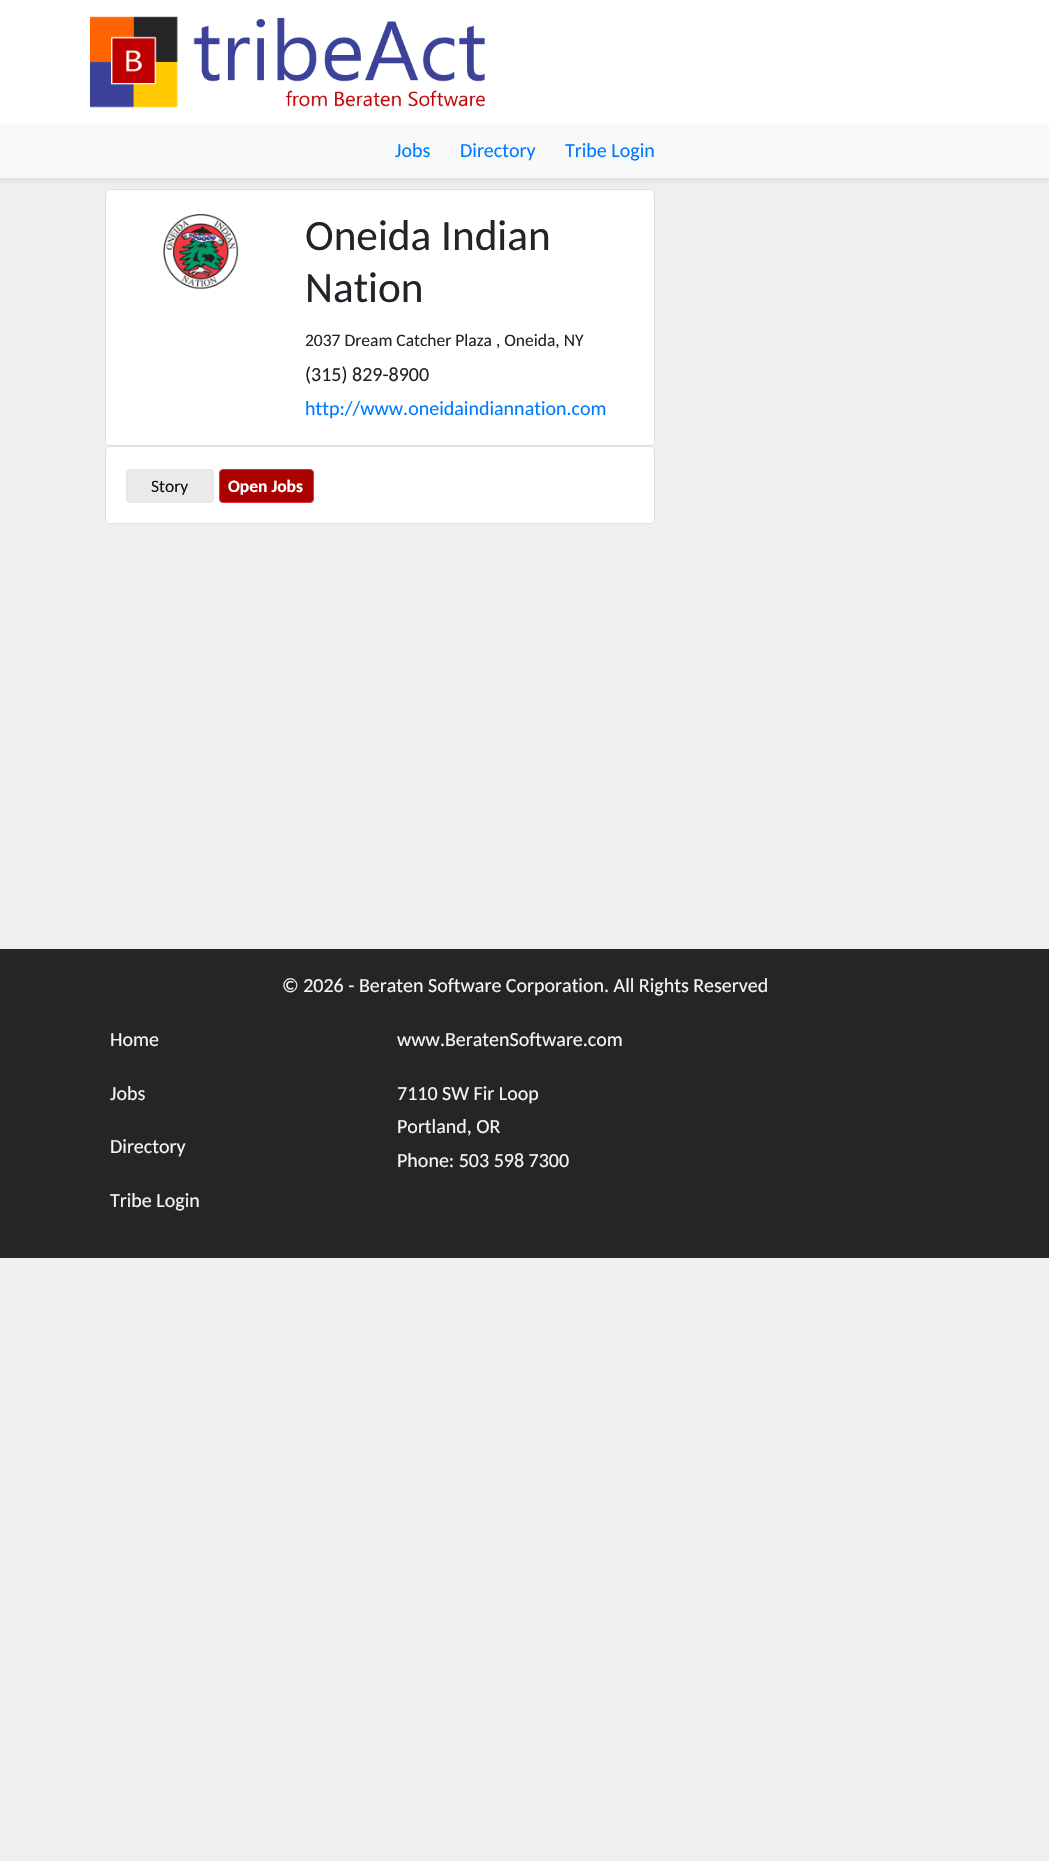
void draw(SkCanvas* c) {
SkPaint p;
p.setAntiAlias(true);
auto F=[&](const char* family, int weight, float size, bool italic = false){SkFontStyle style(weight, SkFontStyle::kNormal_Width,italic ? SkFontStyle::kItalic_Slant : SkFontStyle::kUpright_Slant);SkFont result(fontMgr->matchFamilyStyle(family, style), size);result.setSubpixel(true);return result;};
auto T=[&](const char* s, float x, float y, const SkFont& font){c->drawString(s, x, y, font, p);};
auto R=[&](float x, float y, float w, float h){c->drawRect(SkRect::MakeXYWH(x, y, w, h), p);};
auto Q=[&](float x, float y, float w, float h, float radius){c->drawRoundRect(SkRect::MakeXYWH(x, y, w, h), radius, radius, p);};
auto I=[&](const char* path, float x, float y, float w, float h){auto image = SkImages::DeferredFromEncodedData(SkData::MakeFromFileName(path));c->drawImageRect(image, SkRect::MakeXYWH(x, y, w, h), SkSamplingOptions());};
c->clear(0xffefefef);
p.setColor(0x12000000);
p.setMaskFilter(SkMaskFilter::MakeBlur(kNormal_SkBlurStyle, 2.5));
c->drawRect(SkRect::MakeXYWH(0,126,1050,55),p);
p.setMaskFilter(nullptr);
p.setColor(0xffffffff);
R(0,0,1049,124);
I("1.png",90,16,88,92);
I("2.png",193,17,292,90);
p.setColor(0xfff8f9fa);
R(0,124,1049,54);
p.setColor(0xffdee2e6);
R(0,178,1049,1);
auto f1 = F("Carlito",400,20);
p.setColor(0xff007bff);
T("Jobs",395,157,f1);
T("Directory",460,157,f1);
T("Tribe Login",565,157,f1);
p.setColor(0xffffffff);
Q(105,189,550,257,5);
p.setStroke(true);
p.setStrokeWidth(1);
p.setColor(0x1f000000);
c->drawRoundRect(SkRect::MakeXYWH(105.5,189.5,549,256),4.5,4.5,p);
I("3.png",163,214,76,76);
auto f2 = F("Carlito",400,43.25);
p.setStroke(false);
p.setColor(0xff212529);
T("Oneida Indian",305,250,f2);
T("Nation",305,302,f2);
auto f3 = F("Carlito",400,17.5);
T("2037 Dream Catcher Plaza , Oneida, NY",305,346,f3);
T("(315) 829-8900",305,381,f1);
p.setColor(0xff007bff);
T("http://www.oneidaindiannation.com",305,415,f1);
p.setColor(0xffffffff);
Q(105,446,550,78,5);
p.setStroke(true);
p.setColor(0x1f000000);
c->drawRoundRect(SkRect::MakeXYWH(105.5,446.5,549,77),4.5,4.5,p);
p.setStroke(false);
p.setColor(0xffeaeaea);
c->drawRoundRect(SkRect::MakeXYWH(126.5,469.5,87,33),3.5,3.5,p);
p.setStroke(true);
p.setColor(0xffe4e4e4);
c->drawRoundRect(SkRect::MakeXYWH(126.5,469.5,87,33),3.5,3.5,p);
p.setStroke(false);
p.setColor(0xff111111);
T("Story",151,492,f3);
p.setColor(0xffaa0000);
c->drawRoundRect(SkRect::MakeXYWH(219.5,469.5,94,33),3.5,3.5,p);
p.setStroke(true);
p.setColor(0xffdc3545);
c->drawRoundRect(SkRect::MakeXYWH(219.5,469.5,94,33),3.5,3.5,p);
auto f4 = F("Carlito",700,17.5);
p.setStroke(false);
p.setColor(0xffffffff);
T("Open Jobs",228,492,f4);
p.setColor(0xff252525);
R(0,949,1049,309);
p.setColor(0xfff5f5f5);
T("© 2026 - Beraten Software Corporation. All Rights Reserved",282,992,f1);
T("Home",110,1046,f1);
T("Jobs",110,1100,f1);
T("Directory",110,1153,f1);
T("Tribe Login",110,1207,f1);
T("www.BeratenSoftware.com",397,1046,f1);
T("7110 SW Fir Loop",397,1100,f1);
T("Portland, OR",397,1133,f1);
T("Phone: 503 598 7300",397,1167,f1);
}
